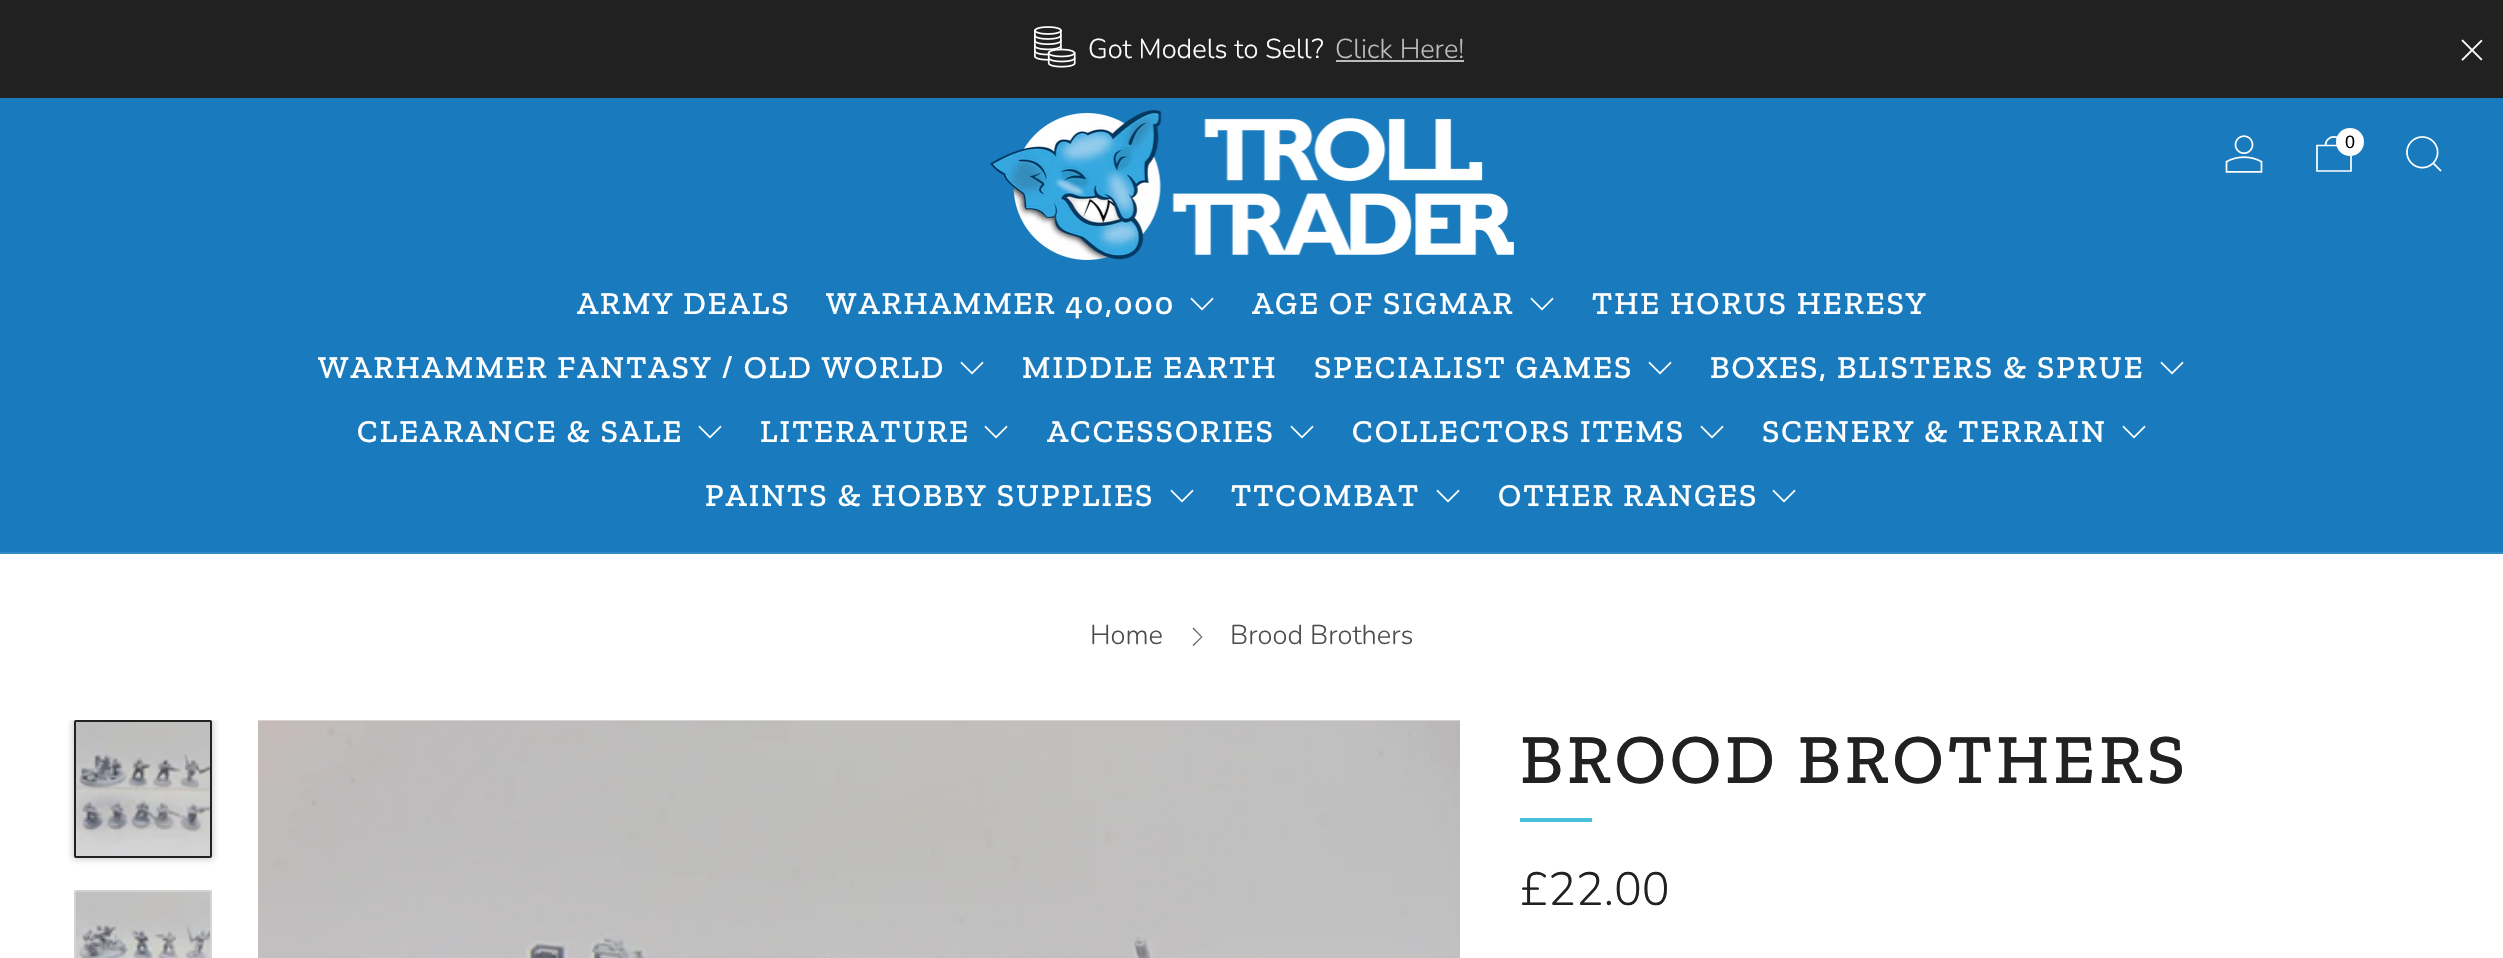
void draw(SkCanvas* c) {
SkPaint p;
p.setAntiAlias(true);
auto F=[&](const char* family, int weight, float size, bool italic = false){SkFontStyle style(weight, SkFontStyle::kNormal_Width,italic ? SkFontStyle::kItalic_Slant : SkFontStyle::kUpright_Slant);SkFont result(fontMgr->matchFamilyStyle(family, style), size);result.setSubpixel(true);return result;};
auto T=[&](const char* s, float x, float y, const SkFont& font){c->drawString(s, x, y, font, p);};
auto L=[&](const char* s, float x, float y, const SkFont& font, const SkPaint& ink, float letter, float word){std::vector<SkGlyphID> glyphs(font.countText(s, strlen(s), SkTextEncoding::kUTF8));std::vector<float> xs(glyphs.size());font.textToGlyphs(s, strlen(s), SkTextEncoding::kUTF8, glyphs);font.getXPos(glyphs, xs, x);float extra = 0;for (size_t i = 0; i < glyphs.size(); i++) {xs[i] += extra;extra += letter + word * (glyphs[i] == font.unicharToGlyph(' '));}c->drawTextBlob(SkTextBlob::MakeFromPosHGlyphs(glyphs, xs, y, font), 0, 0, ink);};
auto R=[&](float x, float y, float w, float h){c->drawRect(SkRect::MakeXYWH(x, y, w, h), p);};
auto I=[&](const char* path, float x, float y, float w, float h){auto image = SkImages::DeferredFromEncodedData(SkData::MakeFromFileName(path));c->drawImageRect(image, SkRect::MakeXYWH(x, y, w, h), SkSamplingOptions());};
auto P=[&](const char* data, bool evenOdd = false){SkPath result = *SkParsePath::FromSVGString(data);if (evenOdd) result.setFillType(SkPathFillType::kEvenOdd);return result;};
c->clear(0xffffffff);
p.setColor(0xff212121);
R(0,0,2503,98);
I("1.png",1034,26,42,42);
auto f1 = F("Nunito",300,27.25);
p.setColor(0xffffffff);
T("Got Models to Sell?",1088,58,f1);
p.setColor(0xffbcbcbc);
T("Click Here!",1335,58,f1);
R(1336,60,128,2);
I("2.png",2461,39,22,22);
p.setColor(0xff197bbd);
R(0,98,2503,454);
p.setColor(0xff3088c4);
R(0,552,2503,2);
I("3.png",990,110,524,150);
I("4.png",2225,135,38,38);
p.setStroke(true);
p.setStrokeWidth(1.7);
p.setColor(0xffffffff);
c->drawPath(P("M2317 145.5h34v25.5h-34zm25.5 0c0-11.5-17-11.5-17 0"),p);
p.setStroke(false);
c->drawCircle(2350,142,14,p);
auto f2 = F("Liberation Sans",400,18);
p.setColor(0xff000000);
T("0",2345,148,f2);
I("5.png",2406,136,36,36);
auto f3 = F("Zilla Slab",500,32);
p.setColor(0xffffffff);
L("ARMY DEALS",577,314,f3,p,2,0);
L("WARHAMMER 40,000",826,314,f3,p,2,0);
c->drawPath(P("M1191.5 297.5l-1 1.5l11.5 11.5l11.5-11.5l-1-1.5l-10.5 10.5z"),p);
L("AGE OF SIGMAR",1252,314,f3,p,2,0);
c->drawPath(P("M1531.5 297.5l-1 1.5l11.5 11.5l11.5-11.5l-1-1.5l-10.5 10.5z"),p);
L("THE HORUS HERESY",1592,314,f3,p,2,0);
L("WARHAMMER FANTASY / OLD WORLD",318,378,f3,p,2,0);
c->drawPath(P("M961.5 361.5l-1 1.5l11.5 11.5l11.5-11.5l-1-1.5l-10.5 10.5z"),p);
L("MIDDLE EARTH",1022,378,f3,p,2,0);
L("SPECIALIST GAMES",1314,378,f3,p,2,0);
c->drawPath(P("M1649.5 361.5l-1 1.5l11.5 11.5l11.5-11.5l-1-1.5l-10.5 10.5z"),p);
L("BOXES, BLISTERS & SPRUE",1710,378,f3,p,2,0);
c->drawPath(P("M2161.5 361.5l-1 1.5l11.5 11.5l11.5-11.5l-1-1.5l-10.5 10.5z"),p);
L("CLEARANCE & SALE",357,442,f3,p,2,0);
c->drawPath(P("M699.5 425.5l-1 1.5l11.5 11.5l11.5-11.5l-1-1.5l-10.5 10.5z"),p);
L("LITERATURE",760,442,f3,p,2,0);
c->drawPath(P("M985.5 425.5l-1 1.5l11.5 11.5l11.5-11.5l-1-1.5l-10.5 10.5z"),p);
L("ACCESSORIES",1047,442,f3,p,2,0);
c->drawPath(P("M1291.5 425.5l-1 1.5l11.5 11.5l11.5-11.5l-1-1.5l-10.5 10.5z"),p);
L("COLLECTORS ITEMS",1352,442,f3,p,2,0);
c->drawPath(P("M1701.5 425.5l-1 1.5l11.5 11.5l11.5-11.5l-1-1.5l-10.5 10.5z"),p);
L("SCENERY & TERRAIN",1762,442,f3,p,2,0);
c->drawPath(P("M2123.5 425.5l-1 1.5l11.5 11.5l11.5-11.5l-1-1.5l-10.5 10.5z"),p);
L("PAINTS & HOBBY SUPPLIES",705,506,f3,p,2,0);
c->drawPath(P("M1171.5 489.5l-1 1.5l11.5 11.5l11.5-11.5l-1-1.5l-10.5 10.5z"),p);
L("TTCOMBAT",1231,506,f3,p,2,0);
c->drawPath(P("M1437.5 489.5l-1 1.5l11.5 11.5l11.5-11.5l-1-1.5l-10.5 10.5z"),p);
L("OTHER RANGES",1498,506,f3,p,2,0);
c->drawPath(P("M1773.5 489.5l-1 1.5l11.5 11.5l11.5-11.5l-1-1.5l-10.5 10.5z"),p);
p.setColor(0xff4d4d4d);
T("Home",1090,644,f1);
p.setColor(0xff646464);
c->drawPath(P("M1192.5 645l1 1l9-9l-9-9.5l-1 1l8.5 8.5z"),p);
p.setColor(0xff4d4d4d);
T("Brood Brothers",1230,644,f1);
c->save();
c->clipRect(SkRect::MakeXYWH(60,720,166,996));
p.setColor(0x33212121);
p.setMaskFilter(SkMaskFilter::MakeBlur(kNormal_SkBlurStyle, 3));
c->drawRoundRect(SkRect::MakeXYWH(72,718,142,142),4,4,p);
p.setMaskFilter(nullptr);
c->restore();
p.setStroke(true);
p.setStrokeWidth(2);
p.setColor(0xff212121);
c->drawRoundRect(SkRect::MakeXYWH(75,721,136,136),1,1,p);
I("6.png",76,722,134,134);
p.setColor(0xffd3d3d3);
c->drawRoundRect(SkRect::MakeXYWH(75,891,136,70),1,1,p);
I("7.png",76,892,134,66);
I("8.png",258,720,1202,238);
auto f4 = F("Zilla Slab",500,70.5);
p.setStroke(false);
p.setColor(0xff212121);
L("BROOD BROTHERS",1520,783,f4,p,4,0);
p.setColor(0xff48c0da);
R(1520,818,72,4);
auto f5 = F("Nunito",300,46.5);
p.setColor(0xff212121);
T("£22.00",1520,905,f5);
}
